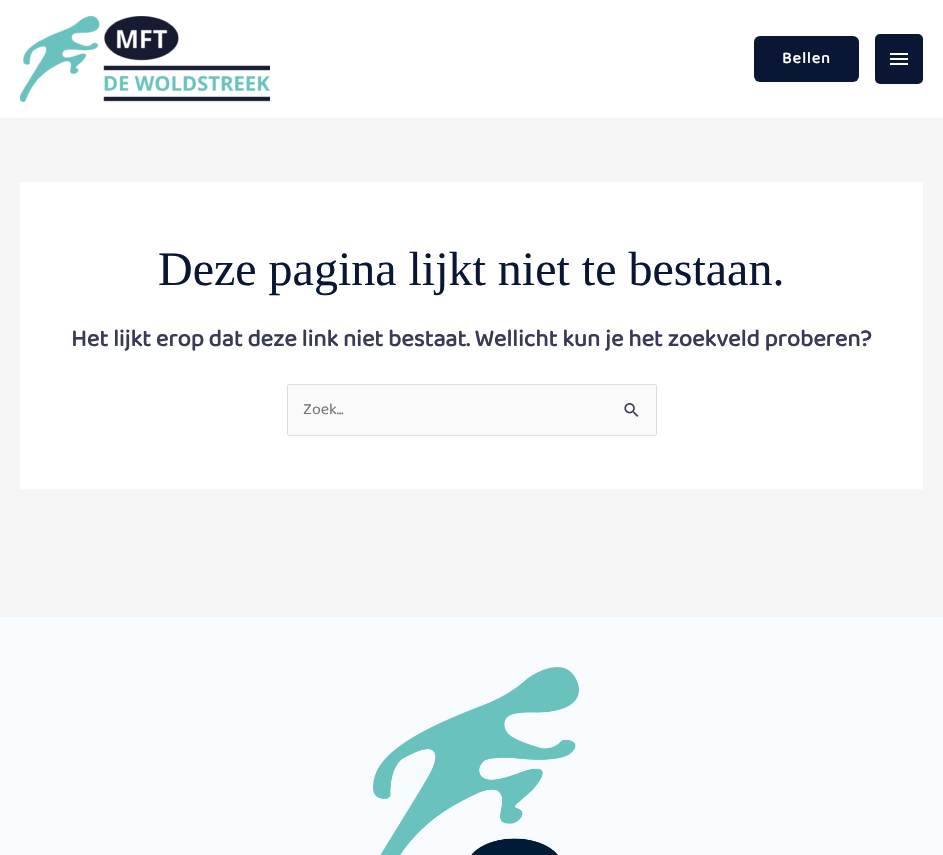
void draw(SkCanvas* c) {
SkPaint p;
p.setAntiAlias(true);
auto F=[&](const char* family, int weight, float size, bool italic = false){SkFontStyle style(weight, SkFontStyle::kNormal_Width,italic ? SkFontStyle::kItalic_Slant : SkFontStyle::kUpright_Slant);SkFont result(fontMgr->matchFamilyStyle(family, style), size);result.setSubpixel(true);return result;};
auto T=[&](const char* s, float x, float y, const SkFont& font){c->drawString(s, x, y, font, p);};
auto L=[&](const char* s, float x, float y, const SkFont& font, const SkPaint& ink, float letter, float word){std::vector<SkGlyphID> glyphs(font.countText(s, strlen(s), SkTextEncoding::kUTF8));std::vector<float> xs(glyphs.size());font.textToGlyphs(s, strlen(s), SkTextEncoding::kUTF8, glyphs);font.getXPos(glyphs, xs, x);float extra = 0;for (size_t i = 0; i < glyphs.size(); i++) {xs[i] += extra;extra += letter + word * (glyphs[i] == font.unicharToGlyph(' '));}c->drawTextBlob(SkTextBlob::MakeFromPosHGlyphs(glyphs, xs, y, font), 0, 0, ink);};
auto R=[&](float x, float y, float w, float h){c->drawRect(SkRect::MakeXYWH(x, y, w, h), p);};
auto Q=[&](float x, float y, float w, float h, float radius){c->drawRoundRect(SkRect::MakeXYWH(x, y, w, h), radius, radius, p);};
auto I=[&](const char* path, float x, float y, float w, float h){auto image = SkImages::DeferredFromEncodedData(SkData::MakeFromFileName(path));c->drawImageRect(image, SkRect::MakeXYWH(x, y, w, h), SkSamplingOptions());};
c->clear(0xfff5f5f5);
p.setColor(0xffffffff);
R(0,0,943,118);
I("1.png",20,16,250,86);
p.setColor(0xff0a1734);
Q(754,36,105,46,6);
auto f1 = F("Baloo 2",700,16);
p.setColor(0xffffffff);
L("Bellen",782,63,f1,p,1,0);
p.setColor(0xff0a1734);
Q(875,34,48,50,5);
I("2.png",890,53,18,12);
p.setColor(0xffffffff);
R(20,182,903,307);
auto f2 = F("Liberation Serif",400,48);
p.setColor(0xff0a1734);
T("Deze pagina lijkt niet te bestaan.",158,285,f2);
auto f3 = F("Baloo 2",700,24);
p.setColor(0xff393a56);
T("Het lijkt erop dat deze link niet bestaat. Wellicht kun je het zoekveld proberen?",71,346,f3);
p.setColor(0xfffafafa);
c->drawRoundRect(SkRect::MakeXYWH(287.5,384.5,369,51),1.5,1.5,p);
p.setStroke(true);
p.setStrokeWidth(1);
p.setColor(0xffdddddd);
c->drawRoundRect(SkRect::MakeXYWH(287.5,384.5,369,51),1.5,1.5,p);
auto f4 = F("Baloo 2",400,16);
p.setStroke(false);
p.setColor(0xff757575);
T("Zoek...",303,414,f4);
I("3.png",624,403,15,14);
p.setColor(0xfff8fcfe);
R(0,617,943,238);
I("4.png",373,667,206,188);
}
